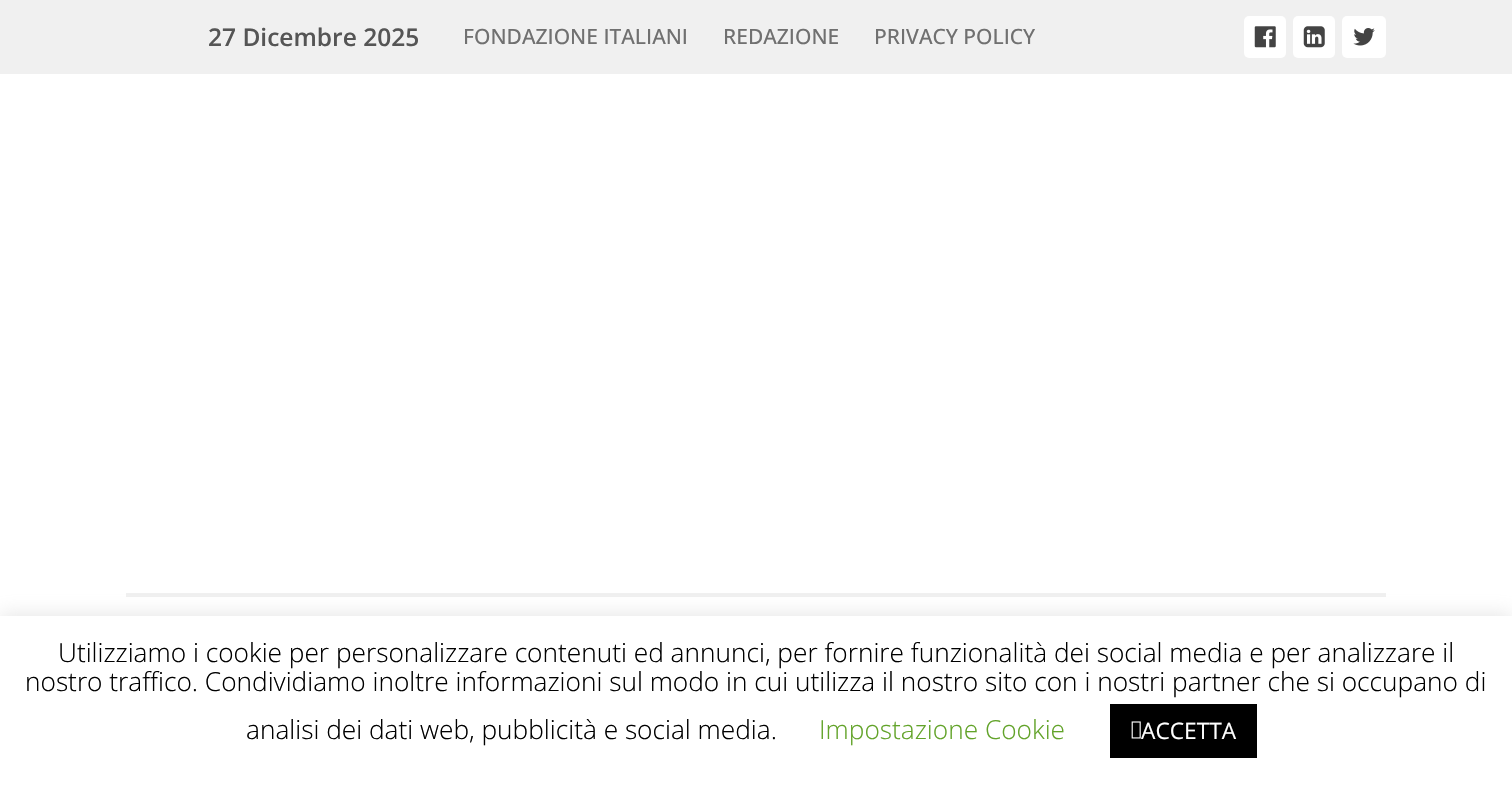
void draw(SkCanvas* c) {
SkPaint p;
p.setAntiAlias(true);
auto F=[&](const char* family, int weight, float size, bool italic = false){SkFontStyle style(weight, SkFontStyle::kNormal_Width,italic ? SkFontStyle::kItalic_Slant : SkFontStyle::kUpright_Slant);SkFont result(fontMgr->matchFamilyStyle(family, style), size);result.setSubpixel(true);return result;};
auto T=[&](const char* s, float x, float y, const SkFont& font){c->drawString(s, x, y, font, p);};
auto R=[&](float x, float y, float w, float h){c->drawRect(SkRect::MakeXYWH(x, y, w, h), p);};
auto Q=[&](float x, float y, float w, float h, float radius){c->drawRoundRect(SkRect::MakeXYWH(x, y, w, h), radius, radius, p);};
auto I=[&](const char* path, float x, float y, float w, float h){auto image = SkImages::DeferredFromEncodedData(SkData::MakeFromFileName(path));c->drawImageRect(image, SkRect::MakeXYWH(x, y, w, h), SkSamplingOptions());};
c->clear(0xffffffff);
p.setColor(0xfff0f0f0);
R(0,0,1512,74);
auto f1 = F("Open Sans",600,24.5);
p.setColor(0xff555555);
T("27 Dicembre 2025",208,46,f1);
auto f2 = F("Open Sans",500,21);
p.setColor(0xff707070);
T("FONDAZIONE ITALIANI",463,44,f2);
T("REDAZIONE",723,44,f2);
T("PRIVACY POLICY",874,44,f2);
p.setColor(0xffffffff);
Q(1244,16,42,42,5);
I("1.png",1254,26,22,22);
Q(1293,16,42,42,5);
I("2.png",1303,26,22,22);
Q(1342,16,44,42,5);
I("3.png",1353,28,22,18);
p.setColor(0xfff0f0f0);
R(126,593,1260,4);
p.setColor(0x4dacabab);
p.setMaskFilter(SkMaskFilter::MakeBlur(kNormal_SkBlurStyle, 9));
c->drawRect(SkRect::MakeXYWH(0,614,1512,172),p);
p.setMaskFilter(nullptr);
p.setColor(0xffffffff);
R(0,616,1512,170);
auto f3 = F("Open Sans",300,26.25);
p.setColor(0xff000000);
T("Utilizziamo i cookie per personalizzare contenuti ed annunci, per fornire funzionalità dei social media e per analizzare il",58,662,f3);
T("nostro traffico. Condividiamo inoltre informazioni sul modo in cui utilizza il nostro sito con i nostri partner che si occupano di",25,691,f3);
T("analisi dei dati web, pubblicità e social media.",246,739,f3);
p.setColor(0xff62a329);
T("Impostazione Cookie",819,739,f3);
p.setColor(0xff000000);
R(1110,704,147,54);
I("4.png",1131,721,10,18);
auto f4 = F("Open Sans",400,22.75);
p.setColor(0xffffffff);
T("ACCETTA",1141,739,f4);
}
